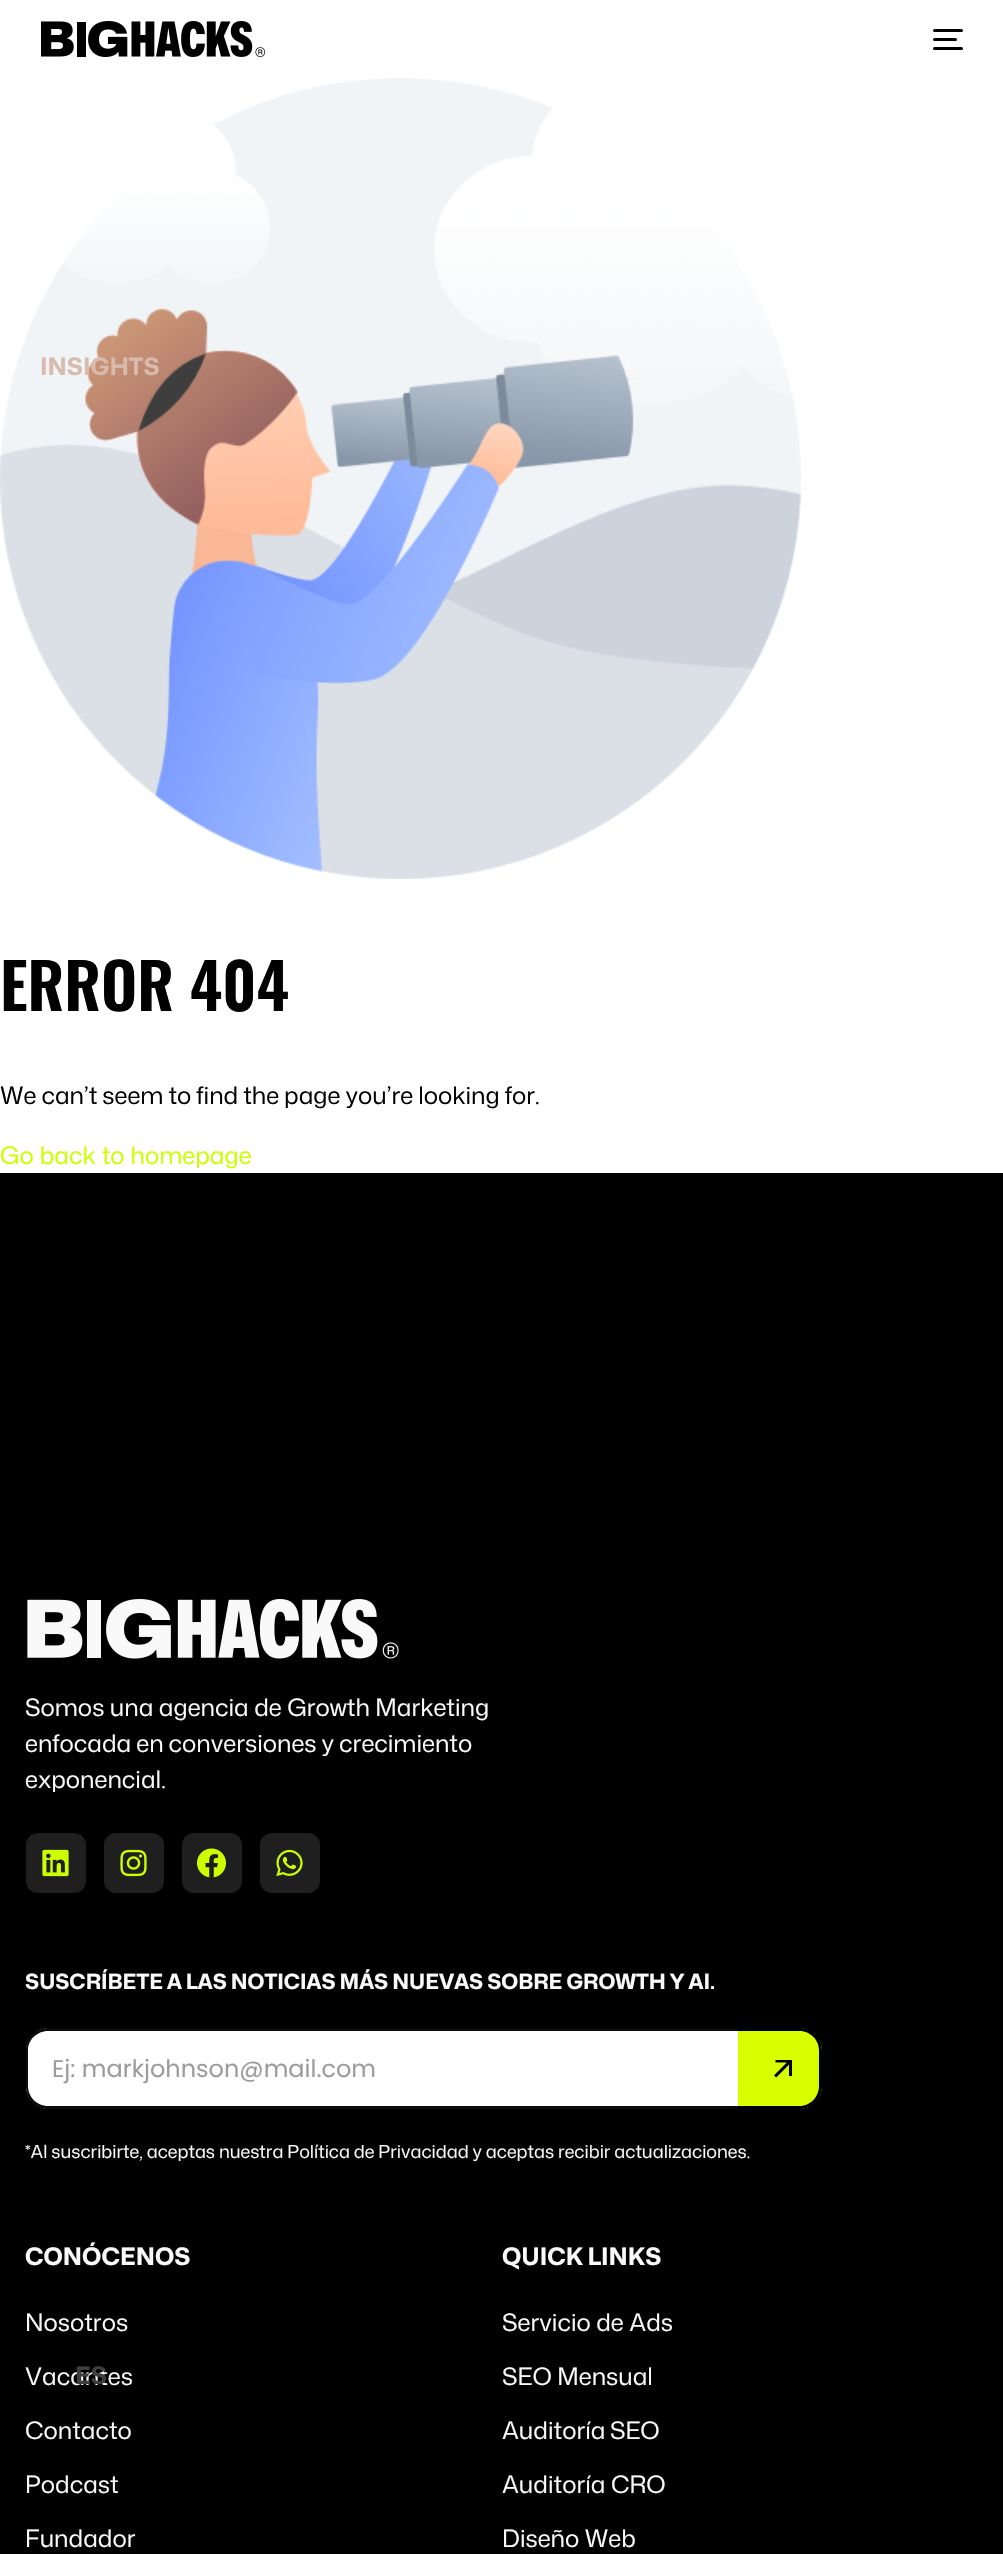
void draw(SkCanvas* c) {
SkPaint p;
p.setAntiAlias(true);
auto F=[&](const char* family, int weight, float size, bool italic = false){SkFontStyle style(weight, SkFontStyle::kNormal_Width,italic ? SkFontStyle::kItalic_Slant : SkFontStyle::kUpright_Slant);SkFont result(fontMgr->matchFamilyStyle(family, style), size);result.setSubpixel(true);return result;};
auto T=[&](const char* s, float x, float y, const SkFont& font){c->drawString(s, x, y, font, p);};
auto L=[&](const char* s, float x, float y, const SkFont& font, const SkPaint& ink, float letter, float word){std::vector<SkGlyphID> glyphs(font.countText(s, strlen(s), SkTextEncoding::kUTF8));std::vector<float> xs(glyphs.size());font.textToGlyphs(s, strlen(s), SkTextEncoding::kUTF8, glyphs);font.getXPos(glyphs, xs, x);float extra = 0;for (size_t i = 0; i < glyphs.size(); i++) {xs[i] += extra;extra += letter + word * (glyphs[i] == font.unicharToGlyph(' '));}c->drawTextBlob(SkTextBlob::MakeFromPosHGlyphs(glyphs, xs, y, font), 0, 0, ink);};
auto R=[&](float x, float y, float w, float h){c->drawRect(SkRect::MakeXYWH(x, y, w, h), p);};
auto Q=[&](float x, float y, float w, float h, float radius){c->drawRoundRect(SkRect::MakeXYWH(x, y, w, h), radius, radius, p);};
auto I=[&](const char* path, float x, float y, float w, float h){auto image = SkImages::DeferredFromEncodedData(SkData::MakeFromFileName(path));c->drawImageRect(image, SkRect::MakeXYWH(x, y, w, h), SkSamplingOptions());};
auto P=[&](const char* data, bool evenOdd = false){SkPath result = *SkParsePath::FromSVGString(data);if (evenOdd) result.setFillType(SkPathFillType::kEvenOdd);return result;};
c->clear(0xffffffff);
I("2.png",0,78,801,801);
auto f1 = F("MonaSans",700,24);
p.setColor(0xffd8bbae);
T("INSIGHTS",40,375,f1);
p.setColor(0xff000000);
R(0,1173,1003,1381);
auto f2 = F("Mona Sans",400,24);
p.setColor(0xfffafafa);
T("Vacantes",25,2385,f2);
p.setColor(0xff404040);
T("ES",75,2384,f1);
I("1.png",41,21,224,36);
p.setColor(0xff000000);
Q(933,29,30,3,1.5);
Q(933,38,24,3,1.5);
Q(933,47,30,3,1.5);
auto f3 = F("Oswald",600,63);
T("ERROR 404",0,1011,f3);
L("We can’t seem to find the page you’re looking for.",0,1104,f2,p,0,-.5);
p.setColor(0xffccff00);
L("Go back to homepage",0,1164,f2,p,0,.5);
I("3.png",27,1599,372,60);
p.setColor(0xfffafafa);
T("Somos una agencia de Growth Marketing",25,1716,f2);
L("enfocada en conversiones y crecimiento",25,1752,f2,p,0,-.5);
T("exponencial.",25,1788,f2);
p.setColor(0xff1f1f1f);
Q(26,1833,60,60,12);
I("4.png",42,1849,27,28);
Q(104,1833,60,60,12);
I("5.png",120,1849,27,28);
Q(182,1833,60,60,12);
I("6.png",197,1848,29,30);
Q(260,1833,60,60,12);
I("7.png",276,1849,27,28);
auto f4 = F("MonaSans",700,21);
p.setColor(0xfffafafa);
L("SUSCRÍBETE A LAS NOTICIAS MÁS NUEVAS SOBRE GROWTH Y AI.",25,1989,f4,p,0,-.5);
p.setColor(0xffffffff);
c->drawPath(P("M49 2028h689v81h-689c-12.5 0-23-10.5-23-23v-35c0-12.5 10.5-23 23-23z"),p);
p.setColor(0xff0b0b0b);
c->drawPath(P("M48 2028h690v81h-690c-12 0-22-10-22-23v-36c0-12 10-22 22-22zm0 3h690v75h-690c-11 0-20-9-20-20v-36c0-10 9-19 20-19z",true),p);
auto f5 = F("Poppins",400,24);
p.setColor(0xff9c9c9c);
T("Ej: markjohnson@mail.com",52,2077,f5);
p.setColor(0xffd8ff00);
c->drawPath(P("M738 2028h61c12.5 0 23 10.5 23 23v35c0 12.5-10.5 23-23 23h-61z"),p);
p.setColor(0xff000000);
c->drawPath(P("M738 2028h62c12 0 22 10 22 22v36c0 13-10 23-22 23h-62zm0 3h62c10 0 19 9 19 19v36c0 11-9 20-19 20h-62z",true),p);
I("8.png",774,2060,18,18);
auto f6 = F("Mona Sans",400,18);
p.setColor(0xfffafafa);
L("*Al suscribirte, aceptas nuestra Política de Privacidad y aceptas recibir actualizaciones.",25,2158,f6,p,0,-.25);
T("CONÓCENOS",25,2265,f1);
T("Nosotros",25,2331,f2);
T("Contacto",25,2439,f2);
T("Podcast",25,2493,f2);
T("Fundador",25,2547,f2);
L("QUICK LINKS",502,2265,f1,p,0,-1);
T("Servicio de Ads",502,2331,f2);
T("SEO Mensual",502,2385,f2);
L("Auditoría SEO",502,2439,f2,p,0,-1);
T("Auditoría CRO",502,2493,f2);
T("Diseño Web",502,2547,f2);
}
